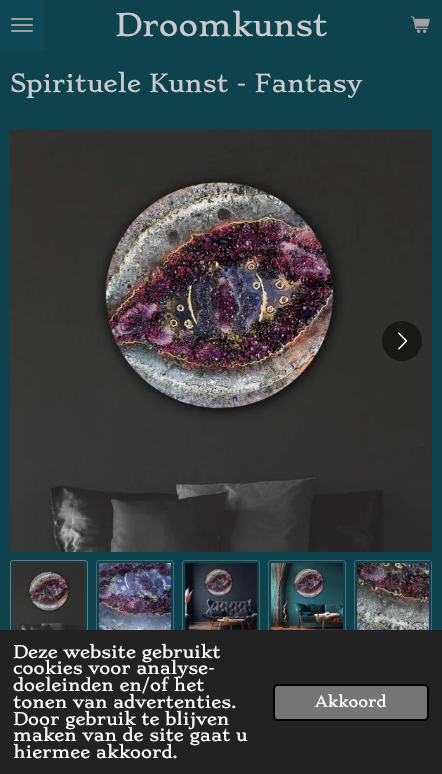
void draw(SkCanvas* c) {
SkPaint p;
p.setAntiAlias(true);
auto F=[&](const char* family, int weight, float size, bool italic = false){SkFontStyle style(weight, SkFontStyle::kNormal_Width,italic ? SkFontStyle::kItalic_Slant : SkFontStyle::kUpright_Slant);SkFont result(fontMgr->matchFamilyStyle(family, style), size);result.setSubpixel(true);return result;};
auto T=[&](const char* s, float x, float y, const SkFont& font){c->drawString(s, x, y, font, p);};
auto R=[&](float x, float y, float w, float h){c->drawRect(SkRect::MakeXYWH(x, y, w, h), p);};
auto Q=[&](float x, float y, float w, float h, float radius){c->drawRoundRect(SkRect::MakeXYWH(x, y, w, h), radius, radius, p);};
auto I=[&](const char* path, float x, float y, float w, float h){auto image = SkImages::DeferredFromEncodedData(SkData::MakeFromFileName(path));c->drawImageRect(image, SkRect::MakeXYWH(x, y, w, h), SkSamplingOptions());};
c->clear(0xff0e424d);
p.setColor(0xff104956);
R(0,0,44,50);
p.setColor(0xff9f9f9f);
Q(11,24,22,2,1);
Q(11,18,22,2,1);
Q(11,30,22,2,1);
auto f1 = F("Stoke",400,30);
p.setColor(0xffcacaca);
T("Droomkunst",115,36,f1);
I("1.png",411,16,19,17);
auto f2 = F("Stoke",400,24);
T("Spirituele Kunst - Fantasy",10,92,f2);
I("2.png",10,130,422,422);
p.setColor(0xff181817);
c->drawCircle(402,341,20,p);
I("3.png",398,332,10,18);
p.setStroke(true);
p.setStrokeWidth(1);
p.setColor(0xff757575);
c->drawRoundRect(SkRect::MakeXYWH(10.5,560.5,77,77),2.5,2.5,p);
I("4.png",13,563,72,67);
p.setColor(0xff466b73);
c->drawRoundRect(SkRect::MakeXYWH(96.5,560.5,77,77),2.5,2.5,p);
I("5.png",99,563,72,67);
c->drawRoundRect(SkRect::MakeXYWH(182.5,560.5,77,77),2.5,2.5,p);
I("6.png",185,563,72,67);
c->drawRoundRect(SkRect::MakeXYWH(268.5,560.5,77,77),2.5,2.5,p);
I("7.png",271,563,72,67);
c->drawRoundRect(SkRect::MakeXYWH(354.5,560.5,77,77),2.5,2.5,p);
I("8.png",357,563,72,67);
p.setStroke(false);
p.setColor(0xff222222);
R(0,630,442,144);
auto f3 = F("Stoke",400,16.75);
p.setColor(0xffffffff);
T("Deze website gebruikt",13,658,f3);
T("cookies voor analyse-",13,674,f3);
T("doeleinden en/of het",13,691,f3);
T("tonen van advertenties.",13,708,f3);
T("Door gebruik te blijven",13,725,f3);
T("maken van de site gaat u",13,741,f3);
T("hiermee akkoord.",13,758,f3);
p.setColor(0xff757575);
c->drawRoundRect(SkRect::MakeXYWH(274,685,154,35),4,4,p);
p.setStroke(true);
p.setStrokeWidth(2);
p.setColor(0xff000000);
c->drawRoundRect(SkRect::MakeXYWH(274,685,154,35),4,4,p);
auto f4 = F("Stoke",400,15);
p.setStroke(false);
p.setColor(0xffffffff);
T("Akkoord",315,707,f4);
}
